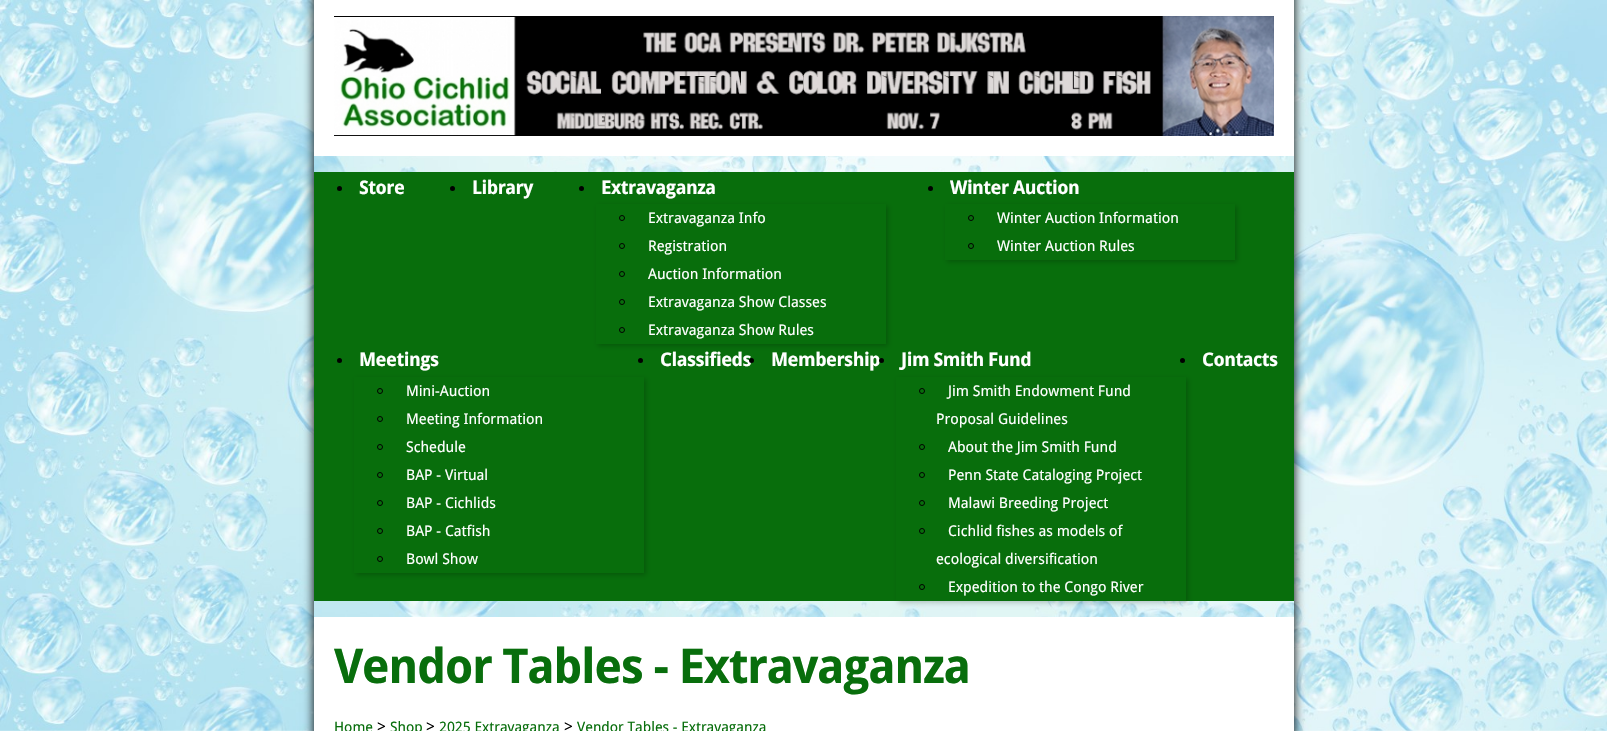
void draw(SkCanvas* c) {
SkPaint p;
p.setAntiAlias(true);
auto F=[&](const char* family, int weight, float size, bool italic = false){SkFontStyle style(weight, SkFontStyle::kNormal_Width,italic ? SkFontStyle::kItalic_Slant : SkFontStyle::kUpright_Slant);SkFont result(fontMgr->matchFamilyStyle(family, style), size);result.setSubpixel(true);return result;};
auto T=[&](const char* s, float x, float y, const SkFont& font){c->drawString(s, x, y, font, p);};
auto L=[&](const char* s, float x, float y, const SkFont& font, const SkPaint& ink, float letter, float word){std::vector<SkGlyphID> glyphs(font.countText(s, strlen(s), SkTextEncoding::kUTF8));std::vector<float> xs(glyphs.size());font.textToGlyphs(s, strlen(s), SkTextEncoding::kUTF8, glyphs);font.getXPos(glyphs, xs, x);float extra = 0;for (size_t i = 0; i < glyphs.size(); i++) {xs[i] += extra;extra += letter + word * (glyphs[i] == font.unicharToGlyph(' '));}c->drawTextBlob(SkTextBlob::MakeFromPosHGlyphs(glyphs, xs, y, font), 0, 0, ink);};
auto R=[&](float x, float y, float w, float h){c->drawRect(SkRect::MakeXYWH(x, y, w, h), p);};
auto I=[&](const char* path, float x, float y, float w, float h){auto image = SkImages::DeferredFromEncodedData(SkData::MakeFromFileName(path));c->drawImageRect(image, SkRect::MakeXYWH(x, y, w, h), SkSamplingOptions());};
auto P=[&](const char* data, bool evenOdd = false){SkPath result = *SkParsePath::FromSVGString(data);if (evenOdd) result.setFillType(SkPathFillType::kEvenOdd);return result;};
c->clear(0xffffffff);
I("1.png",0,0,1607,731);
c->save();
c->clipPath(P("M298 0h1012v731h-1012zm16-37h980v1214h-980z",true),true);
p.setColor(0xff000000);
p.setMaskFilter(SkMaskFilter::MakeBlur(kNormal_SkBlurStyle, 5));
c->drawRect(SkRect::MakeXYWH(314,-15,980,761),p);
p.setMaskFilter(nullptr);
c->restore();
p.setColor(0xffffffff);
R(314,0,980,156);
I("2.png",334,16,940,120);
p.setColor(0xff086e0c);
R(314,172,980,429);
p.setColor(0xff000000);
c->drawCircle(339.5,188.5,2.5,p);
auto f1 = F("Droid Sans",700,18.75);
p.setColor(0xffffffff);
L("Store",359,194,f1,p,-.5,0);
p.setColor(0xff000000);
c->drawCircle(452.5,188.5,2.5,p);
p.setColor(0xffffffff);
L("Library",472,194,f1,p,-.5,0);
p.setColor(0xff000000);
c->drawCircle(581.5,188.5,2.5,p);
c->save();
c->clipPath(P("M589 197h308v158h-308zm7 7h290v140h-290z",true),true);
p.setColor(0x33000000);
p.setMaskFilter(SkMaskFilter::MakeBlur(kNormal_SkBlurStyle, 2.5));
c->drawRect(SkRect::MakeXYWH(598,206,290,140),p);
p.setMaskFilter(nullptr);
c->restore();
p.setColor(0xffffffff);
L("Extravaganza",601,194,f1,p,-.5,0);
p.setStroke(true);
p.setStrokeWidth(1);
p.setColor(0xff000000);
c->drawCircle(622,218,2.5,p);
auto f2 = F("Droid Sans",400,14.7);
p.setStroke(false);
p.setColor(0xffffffff);
T("Extravaganza Info",648,223,f2);
p.setStroke(true);
p.setColor(0xff000000);
c->drawCircle(622,246,2.5,p);
p.setStroke(false);
p.setColor(0xffffffff);
T("Registration",648,251,f2);
p.setStroke(true);
p.setColor(0xff000000);
c->drawCircle(622,274,2.5,p);
p.setStroke(false);
p.setColor(0xffffffff);
T("Auction Information",648,279,f2);
p.setStroke(true);
p.setColor(0xff000000);
c->drawCircle(622,302,2.5,p);
p.setStroke(false);
p.setColor(0xffffffff);
T("Extravaganza Show Classes",648,307,f2);
p.setStroke(true);
p.setColor(0xff000000);
c->drawCircle(622,330,2.5,p);
p.setStroke(false);
p.setColor(0xffffffff);
T("Extravaganza Show Rules",648,335,f2);
p.setColor(0xff000000);
c->drawCircle(930.5,188.5,2.5,p);
p.setColor(0xffffffff);
L("Winter Auction",950,194,f1,p,-.5,0);
c->save();
c->clipPath(P("M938 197h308v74h-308zm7 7h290v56h-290z",true),true);
p.setColor(0x33000000);
p.setMaskFilter(SkMaskFilter::MakeBlur(kNormal_SkBlurStyle, 2.5));
c->drawRect(SkRect::MakeXYWH(947,206,290,56),p);
p.setMaskFilter(nullptr);
c->restore();
p.setStroke(true);
p.setColor(0xff000000);
c->drawCircle(971,218,2.5,p);
p.setStroke(false);
p.setColor(0xffffffff);
T("Winter Auction Information",997,223,f2);
p.setStroke(true);
p.setColor(0xff000000);
c->drawCircle(971,246,2.5,p);
p.setStroke(false);
p.setColor(0xffffffff);
T("Winter Auction Rules",997,251,f2);
p.setColor(0xff000000);
c->drawCircle(339.5,360.5,2.5,p);
c->save();
c->clipPath(P("M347 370h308v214h-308zm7 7h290v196h-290z",true),true);
p.setColor(0x33000000);
p.setMaskFilter(SkMaskFilter::MakeBlur(kNormal_SkBlurStyle, 2.5));
c->drawRect(SkRect::MakeXYWH(356,379,290,196),p);
p.setMaskFilter(nullptr);
c->restore();
p.setColor(0xffffffff);
L("Meetings",359,366,f1,p,-.5,0);
p.setStroke(true);
p.setColor(0xff000000);
c->drawCircle(380,391,2.5,p);
p.setStroke(false);
p.setColor(0xffffffff);
T("Mini-Auction",406,396,f2);
p.setStroke(true);
p.setColor(0xff000000);
c->drawCircle(380,419,2.5,p);
p.setStroke(false);
p.setColor(0xffffffff);
T("Meeting Information",406,424,f2);
p.setStroke(true);
p.setColor(0xff000000);
c->drawCircle(380,447,2.5,p);
p.setStroke(false);
p.setColor(0xffffffff);
T("Schedule",406,452,f2);
p.setStroke(true);
p.setColor(0xff000000);
c->drawCircle(380,475,2.5,p);
p.setStroke(false);
p.setColor(0xffffffff);
T("BAP - Virtual",406,480,f2);
p.setStroke(true);
p.setColor(0xff000000);
c->drawCircle(380,503,2.5,p);
p.setStroke(false);
p.setColor(0xffffffff);
T("BAP - Cichlids",406,508,f2);
p.setStroke(true);
p.setColor(0xff000000);
c->drawCircle(380,531,2.5,p);
p.setStroke(false);
p.setColor(0xffffffff);
T("BAP - Catfish",406,536,f2);
p.setStroke(true);
p.setColor(0xff000000);
c->drawCircle(380,559,2.5,p);
p.setStroke(false);
p.setColor(0xffffffff);
T("Bowl Show",406,564,f2);
p.setColor(0xff000000);
c->drawCircle(640.5,360.5,2.5,p);
p.setColor(0xffffffff);
L("Classifieds",660,366,f1,p,-.5,0);
p.setColor(0xff000000);
c->drawCircle(751.5,360.5,2.5,p);
p.setColor(0xffffffff);
L("Membership",771,366,f1,p,-.5,0);
p.setColor(0xff000000);
c->drawCircle(881.5,360.5,2.5,p);
p.setColor(0xffffffff);
L("Jim Smith Fund",901,366,f1,p,-.5,0);
c->save();
c->clipPath(P("M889 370h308v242h-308zm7 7h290v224h-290z",true),true);
p.setColor(0x33000000);
p.setMaskFilter(SkMaskFilter::MakeBlur(kNormal_SkBlurStyle, 2.5));
c->drawRect(SkRect::MakeXYWH(898,379,290,224),p);
p.setMaskFilter(nullptr);
c->restore();
p.setStroke(true);
p.setColor(0xff000000);
c->drawCircle(922,391,2.5,p);
p.setStroke(false);
p.setColor(0xffffffff);
T("Jim Smith Endowment Fund",948,396,f2);
T("Proposal Guidelines",936,424,f2);
p.setStroke(true);
p.setColor(0xff000000);
c->drawCircle(922,447,2.5,p);
p.setStroke(false);
p.setColor(0xffffffff);
T("About the Jim Smith Fund",948,452,f2);
p.setStroke(true);
p.setColor(0xff000000);
c->drawCircle(922,475,2.5,p);
p.setStroke(false);
p.setColor(0xffffffff);
T("Penn State Cataloging Project",948,480,f2);
p.setStroke(true);
p.setColor(0xff000000);
c->drawCircle(922,503,2.5,p);
p.setStroke(false);
p.setColor(0xffffffff);
T("Malawi Breeding Project",948,508,f2);
p.setStroke(true);
p.setColor(0xff000000);
c->drawCircle(922,531,2.5,p);
p.setStroke(false);
p.setColor(0xffffffff);
T("Cichlid fishes as models of",948,536,f2);
T("ecological diversification",936,564,f2);
p.setStroke(true);
p.setColor(0xff000000);
c->drawCircle(922,587,2.5,p);
p.setStroke(false);
p.setColor(0xffffffff);
T("Expedition to the Congo River",948,592,f2);
p.setColor(0xff000000);
c->drawCircle(1182.5,360.5,2.5,p);
p.setColor(0xffffffff);
L("Contacts",1202,366,f1,p,-.5,0);
R(314,617,980,114);
auto f3 = F("Droid Sans",700,48);
p.setColor(0xff086e0c);
L("Vendor Tables - Extravaganza",334,683,f3,p,-1.45,0);
auto f4 = F("Droid Sans",400,14.4);
T("Home",334,732,f4);
auto f5 = F("Droid Sans",400,16);
p.setColor(0xff000000);
T(">",377,732,f5);
p.setColor(0xff086e0c);
T("Shop",390,732,f4);
p.setColor(0xff000000);
T(">",426,732,f5);
p.setColor(0xff086e0c);
T("2025 Extravaganza",439,732,f4);
p.setColor(0xff000000);
T(">",564,732,f5);
p.setColor(0xff086e0c);
T("Vendor Tables - Extravaganza",577,732,f4);
}
